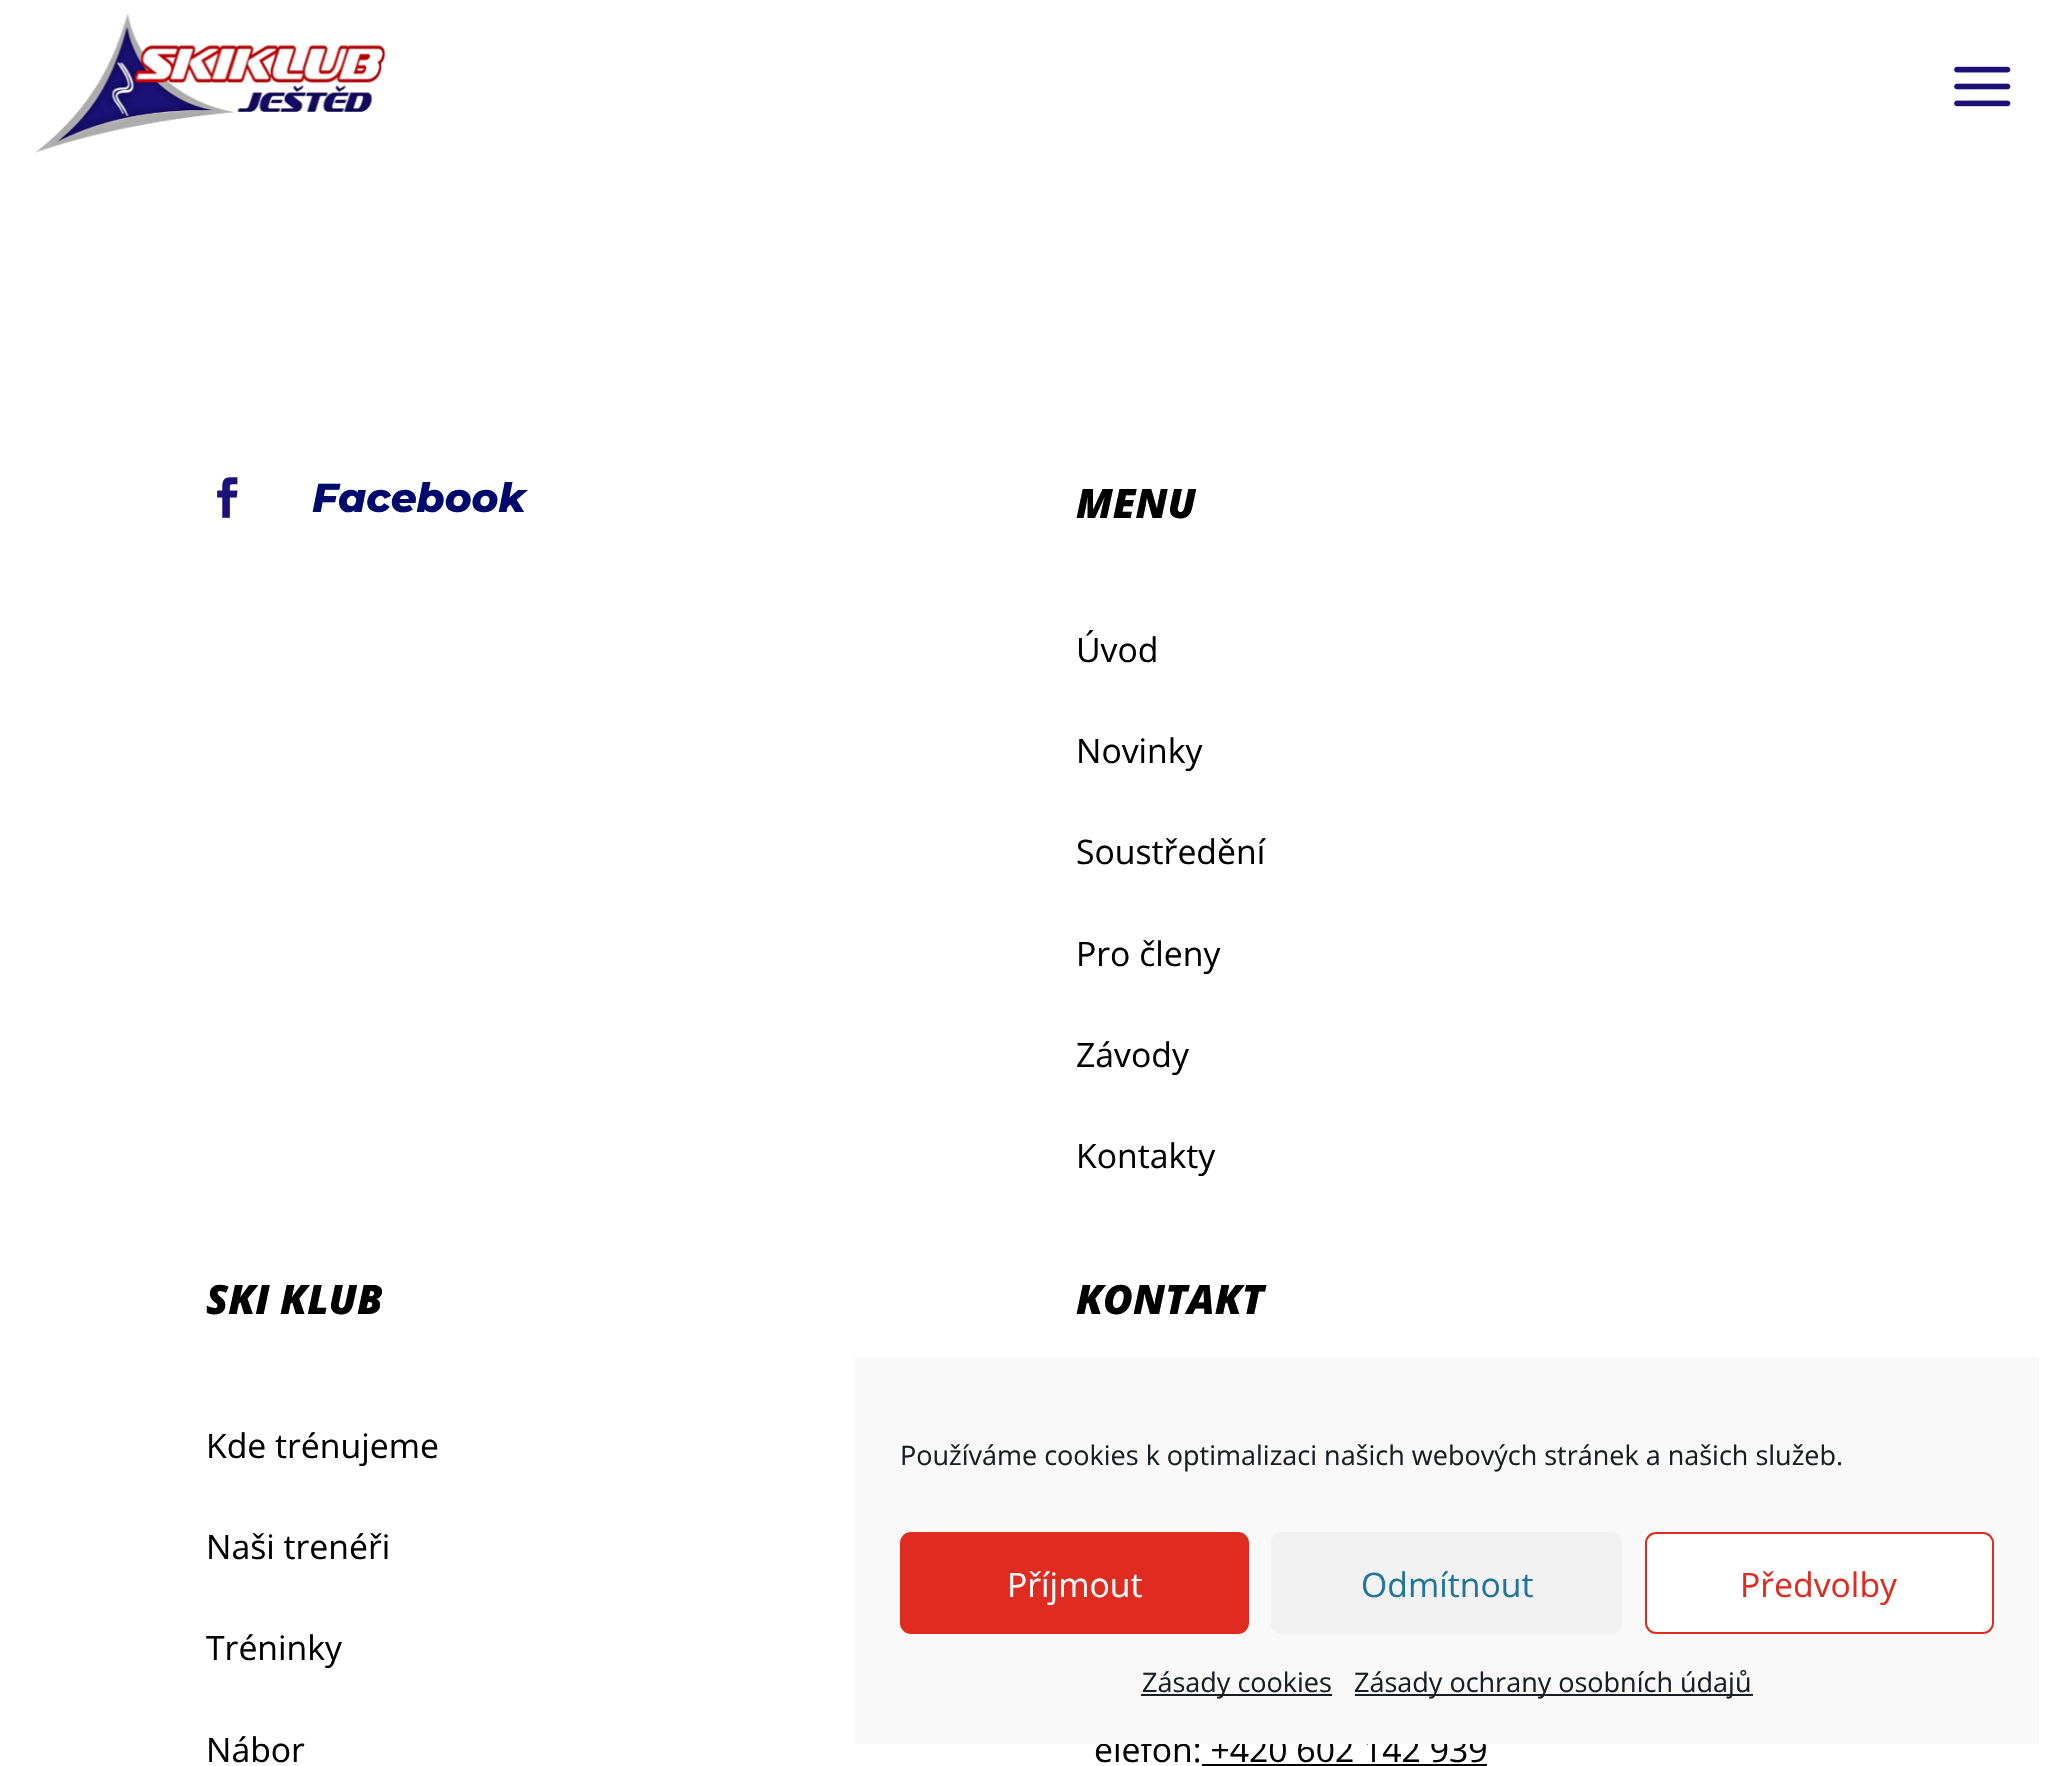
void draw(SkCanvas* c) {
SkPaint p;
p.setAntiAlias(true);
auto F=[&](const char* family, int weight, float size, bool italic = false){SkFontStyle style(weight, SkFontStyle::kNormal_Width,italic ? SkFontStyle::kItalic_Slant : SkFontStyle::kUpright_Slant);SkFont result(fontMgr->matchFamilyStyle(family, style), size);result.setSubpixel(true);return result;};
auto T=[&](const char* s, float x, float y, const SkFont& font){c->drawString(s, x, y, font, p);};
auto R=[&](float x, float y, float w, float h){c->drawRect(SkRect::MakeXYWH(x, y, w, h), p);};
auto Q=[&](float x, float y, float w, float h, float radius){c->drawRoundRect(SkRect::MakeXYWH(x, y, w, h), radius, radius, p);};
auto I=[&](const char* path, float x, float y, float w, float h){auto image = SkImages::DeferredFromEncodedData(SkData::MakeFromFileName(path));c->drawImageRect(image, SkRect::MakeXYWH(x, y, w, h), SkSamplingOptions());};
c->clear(0xffffffff);
I("1.png",35,13,350,140);
I("2.png",1954,66,57,41);
I("3.png",217,477,21,41);
auto f1 = F("Montserrat",100,40.5,true);
p.setColor(0xff000a6d);
T("Facebook",312,512,f1);
auto f2 = F("Open Sans",800,40.5,true);
p.setColor(0xff000000);
T("MENU",1076,518,f2);
auto f3 = F("Open Sans",400,33.75);
T("Úvod",1076,662,f3);
T("Novinky",1076,763,f3);
T("Soustředění",1076,864,f3);
T("Pro členy",1076,966,f3);
T("Závody",1076,1067,f3);
T("Kontakty",1076,1168,f3);
T("SKI KLUB",206,1314,f2);
T("Kde trénujeme",206,1458,f3);
T("Naši trenéři",206,1559,f3);
T("Tréninky",206,1660,f3);
T("Nábor",206,1762,f3);
T("KONTAKT",1076,1314,f2);
T("elefon: +420 602 142 939",1094,1762,f3);
R(1202,1764,285,2);
p.setColor(0xfff9f9f9);
R(855,1357,1184,387);
auto f4 = F("Open Sans",400,27);
p.setColor(0xff191e23);
T("Používáme cookies k optimalizaci našich webových stránek a našich služeb.",900,1465,f4);
p.setColor(0xffe02b20);
c->drawRoundRect(SkRect::MakeXYWH(901,1533,347,100),10,10,p);
p.setStroke(true);
p.setStrokeWidth(2);
c->drawRoundRect(SkRect::MakeXYWH(901,1533,347,100),10,10,p);
p.setStroke(false);
p.setColor(0xffffffff);
T("Příjmout",1007,1597,f3);
p.setColor(0xfff1f1f1);
Q(1271,1532,351,102,11);
p.setColor(0xff21759b);
T("Odmítnout",1361,1597,f3);
p.setColor(0xffffffff);
c->drawRoundRect(SkRect::MakeXYWH(1646,1533,347,100),10,10,p);
p.setStroke(true);
p.setColor(0xffe02b20);
c->drawRoundRect(SkRect::MakeXYWH(1646,1533,347,100),10,10,p);
p.setStroke(false);
T("Předvolby",1740,1597,f3);
p.setColor(0xff191e23);
R(1141,1694,191,2);
T("Zásady cookies",1142,1692,f4);
R(1355,1694,398,2);
T("Zásady ochrany osobních údajů",1354,1692,f4);
}
